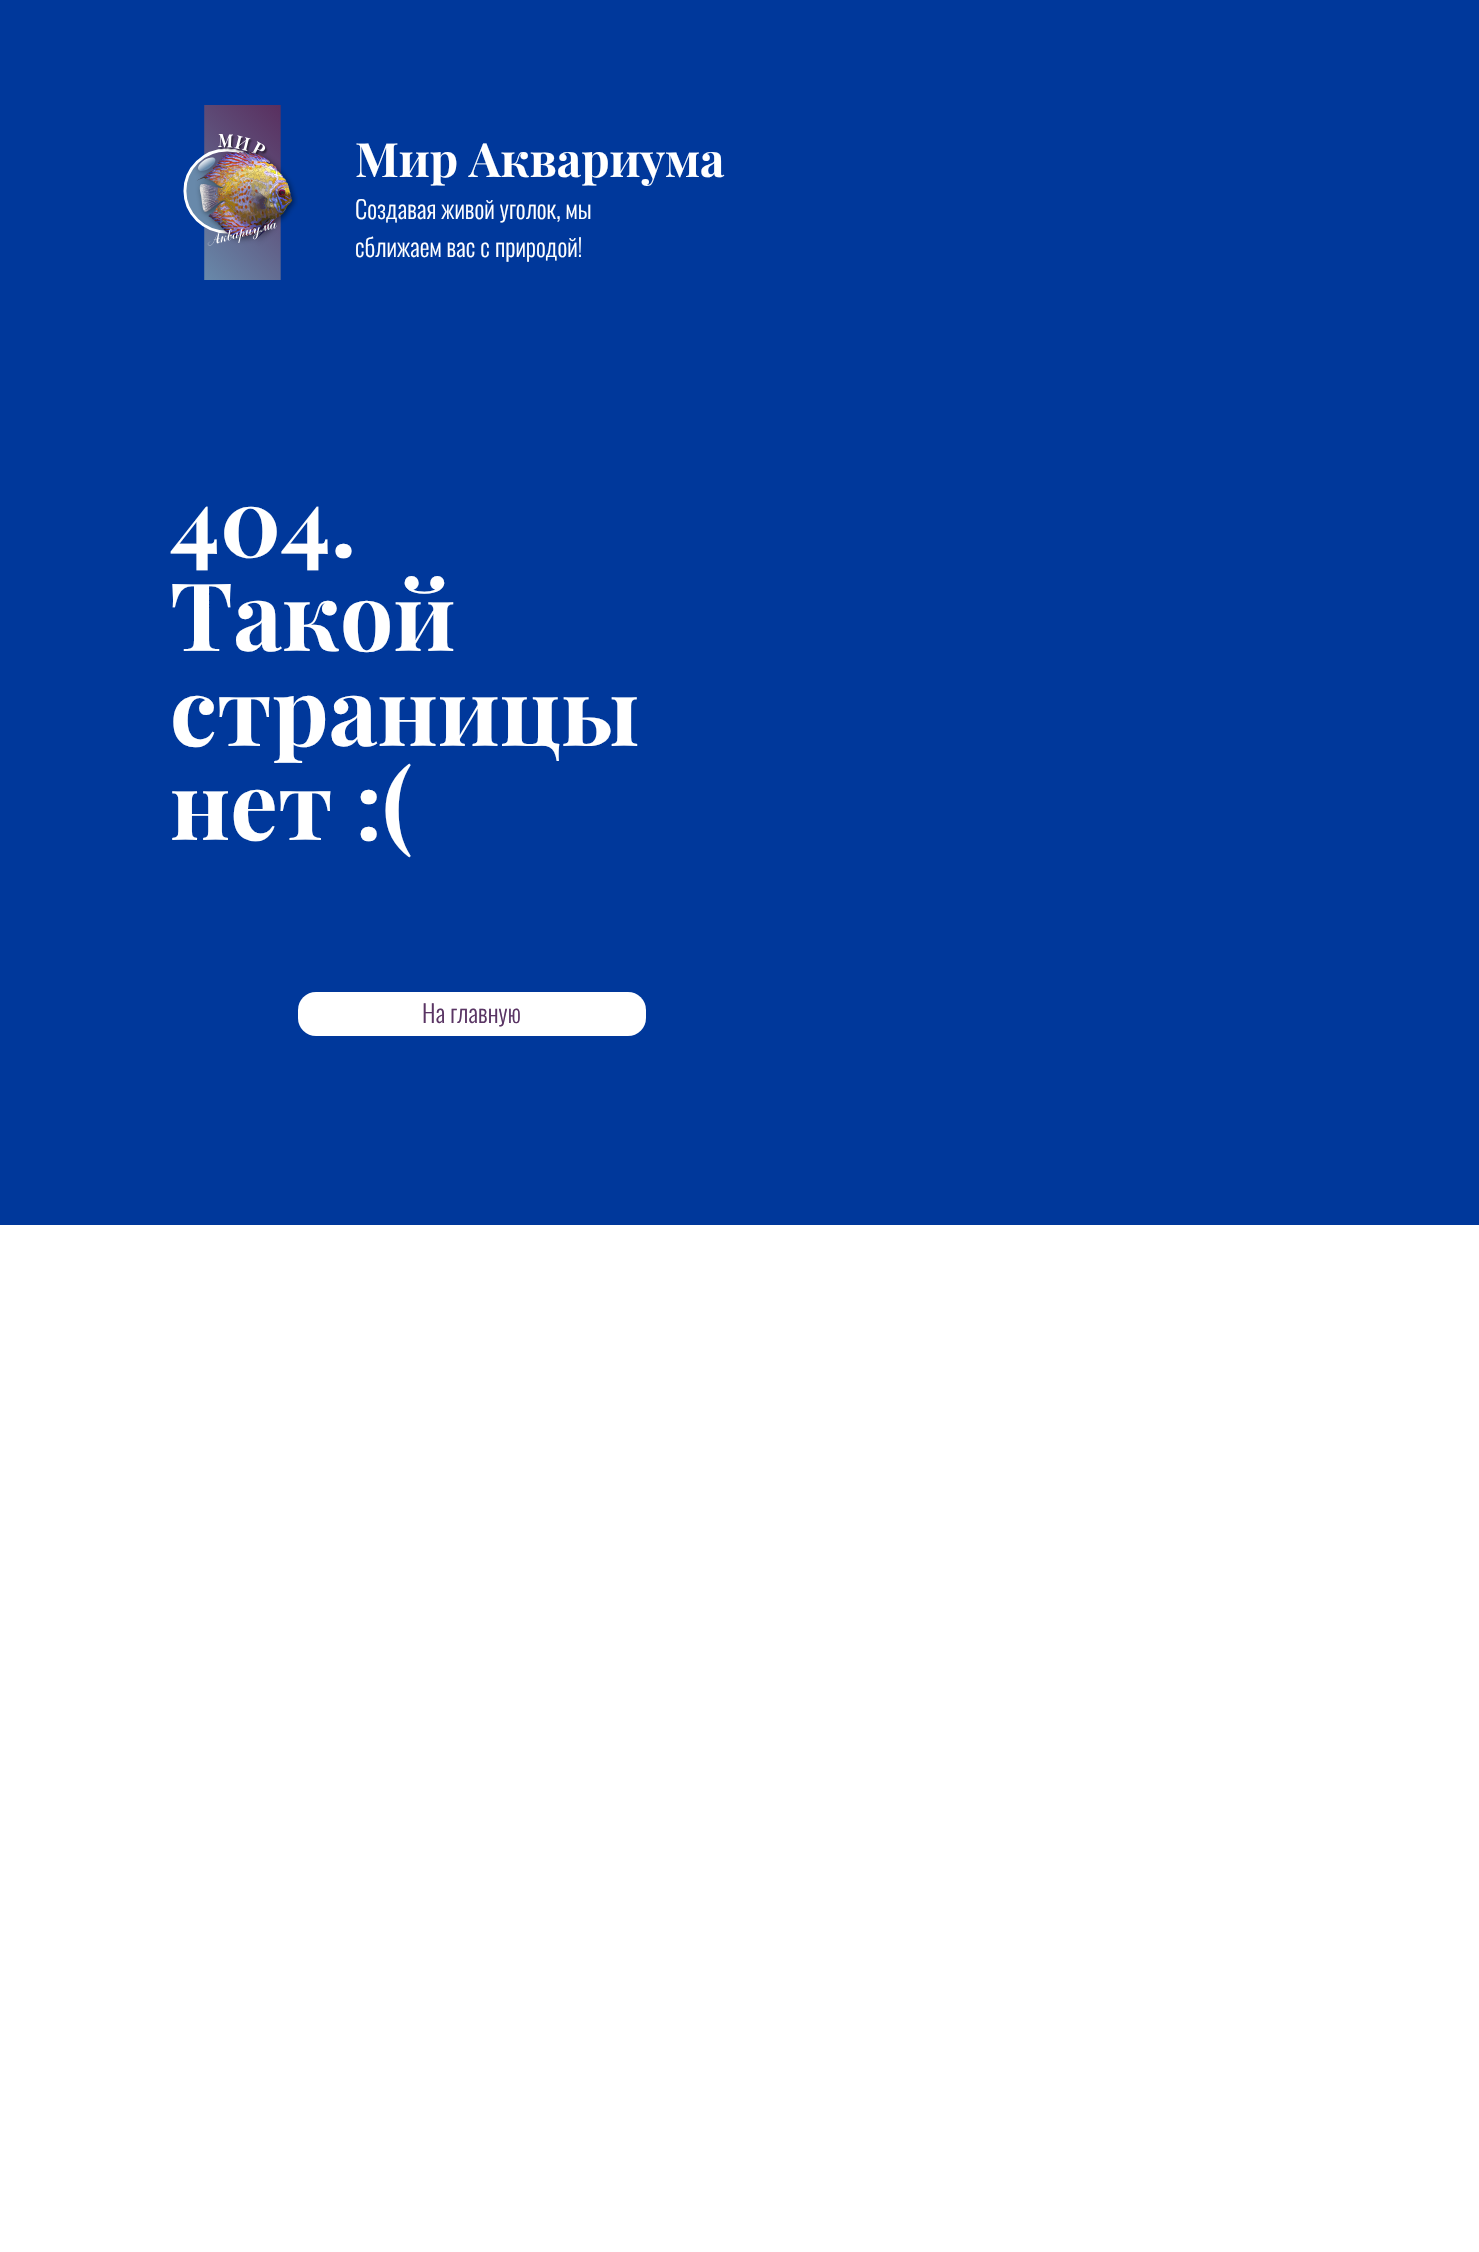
void draw(SkCanvas* c) {
SkPaint p;
p.setAntiAlias(true);
auto F=[&](const char* family, int weight, float size, bool italic = false){SkFontStyle style(weight, SkFontStyle::kNormal_Width,italic ? SkFontStyle::kItalic_Slant : SkFontStyle::kUpright_Slant);SkFont result(fontMgr->matchFamilyStyle(family, style), size);result.setSubpixel(true);return result;};
auto T=[&](const char* s, float x, float y, const SkFont& font){c->drawString(s, x, y, font, p);};
auto R=[&](float x, float y, float w, float h){c->drawRect(SkRect::MakeXYWH(x, y, w, h), p);};
auto Q=[&](float x, float y, float w, float h, float radius){c->drawRoundRect(SkRect::MakeXYWH(x, y, w, h), radius, radius, p);};
auto I=[&](const char* path, float x, float y, float w, float h){auto image = SkImages::DeferredFromEncodedData(SkData::MakeFromFileName(path));c->drawImageRect(image, SkRect::MakeXYWH(x, y, w, h), SkSamplingOptions());};
c->clear(0xffffffff);
p.setColor(0xff00389b);
R(0,0,1479,1225);
I("1.png",183,105,115,175);
auto f1 = F("Playfair Display",700,47.25);
p.setColor(0xffffffff);
T("Мир Аквариума",355,177,f1);
auto f2 = F("Oswald",300,24.5);
T("Создавая живой уголок, мы",355,219,f2);
T("сближаем вас с природой!",355,257,f2);
auto f3 = F("Playfair Display",700,94.5);
T("404.",170,557,f3);
T("Такой",170,651,f3);
T("страницы",170,746,f3);
T("нет :(",170,840,f3);
Q(298,992,348,44,18);
p.setColor(0xff5a3564);
T("На главную",422,1023,f2);
}
